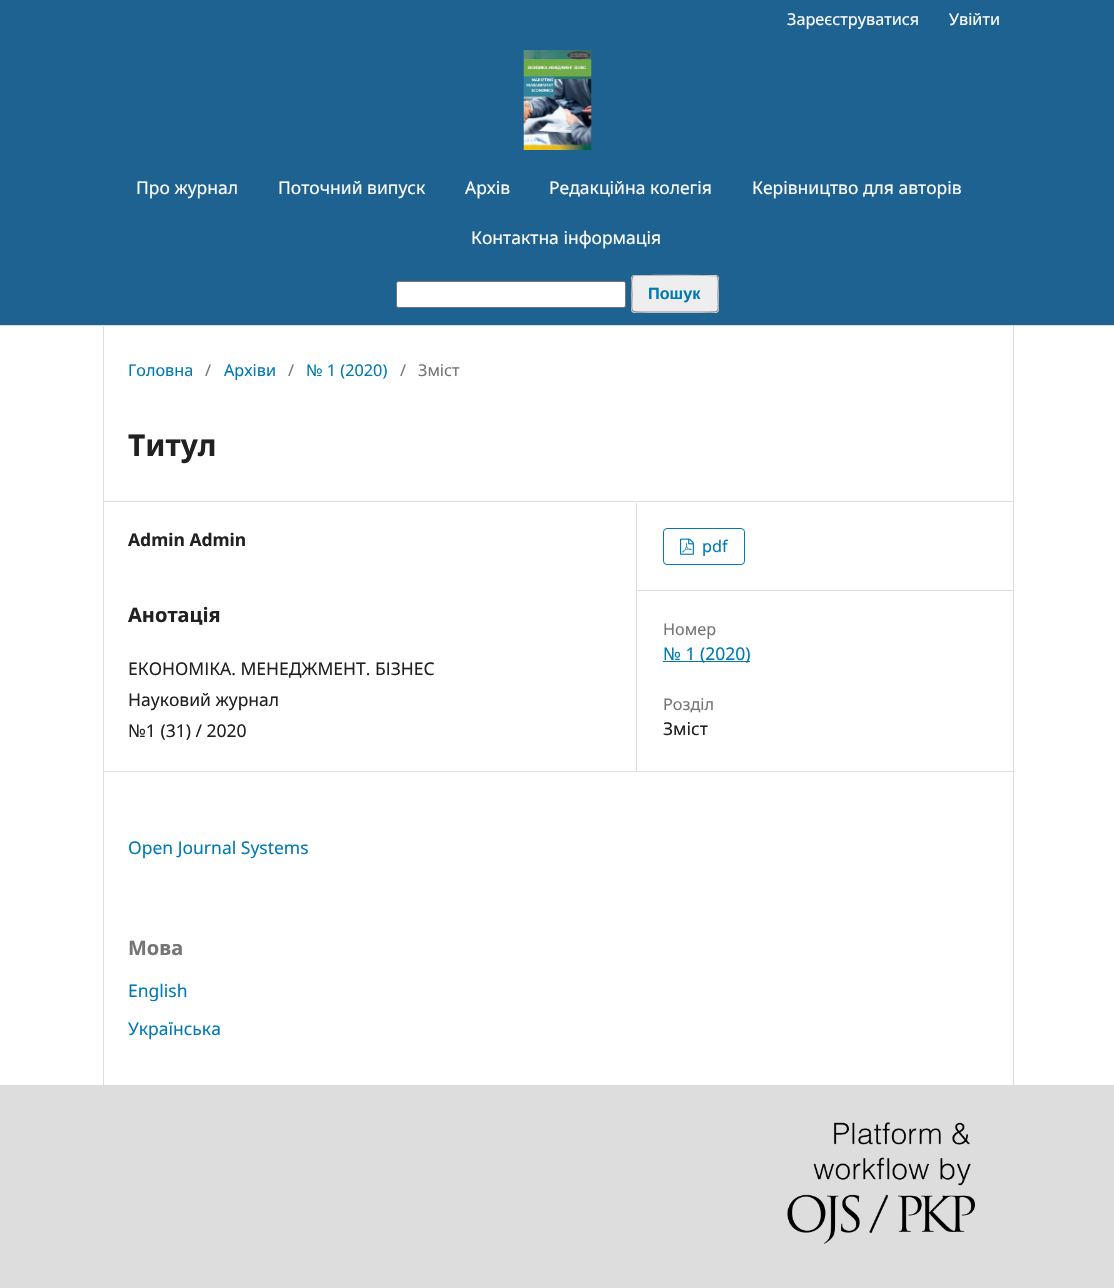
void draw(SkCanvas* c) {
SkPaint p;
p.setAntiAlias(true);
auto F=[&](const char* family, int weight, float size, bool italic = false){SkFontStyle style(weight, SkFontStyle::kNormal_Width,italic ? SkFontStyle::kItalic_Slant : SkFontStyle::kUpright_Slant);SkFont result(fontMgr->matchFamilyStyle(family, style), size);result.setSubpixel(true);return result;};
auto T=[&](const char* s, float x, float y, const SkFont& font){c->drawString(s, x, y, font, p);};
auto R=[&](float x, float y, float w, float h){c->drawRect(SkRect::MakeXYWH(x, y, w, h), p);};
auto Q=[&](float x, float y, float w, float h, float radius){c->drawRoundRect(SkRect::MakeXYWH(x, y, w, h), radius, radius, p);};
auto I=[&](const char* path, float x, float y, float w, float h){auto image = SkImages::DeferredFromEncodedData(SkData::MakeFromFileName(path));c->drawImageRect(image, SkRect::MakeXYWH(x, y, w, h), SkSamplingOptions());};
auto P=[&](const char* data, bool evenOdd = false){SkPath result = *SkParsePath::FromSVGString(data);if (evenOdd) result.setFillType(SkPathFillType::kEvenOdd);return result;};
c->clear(0xffffffff);
p.setColor(0xff1e6292);
R(0,0,1114,325);
p.setColor(0xffdddddd);
R(0,325,1114,1);
auto f1 = F("Noto Sans",400,16.25);
p.setColor(0xffffffff);
T("Зареєструватися",787,25,f1);
T("Увійти",949,25,f1);
I("1.png",523,50,69,100);
auto f2 = F("Noto Sans",400,17.5);
T("Про журнал",136,194,f2);
T("Поточний випуск",278,194,f2);
T("Архів",465,194,f2);
T("Редакційна колегія",549,194,f2);
T("Керівництво для авторів",752,194,f2);
T("Контактна інформація",471,244,f2);
c->drawRoundRect(SkRect::MakeXYWH(396.5,281.5,229,26),2,2,p);
p.setStroke(true);
p.setStrokeWidth(1);
p.setColor(0xff767676);
c->drawRoundRect(SkRect::MakeXYWH(396.5,281.5,229,26),2,2,p);
p.setStroke(false);
p.setColor(0xffeeeeee);
Q(631,275,88,38,4);
p.setStroke(true);
p.setStrokeWidth(1.2);
p.setColor(0xffbbbbbb);
c->drawPath(P("M633 276.5l2-1h13.5c7.5 0 66.5-1 68.5 1"),p);
p.setColor(0x66000000);
c->drawPath(P("M717 276.5c2.5 2 1 14 1 17.5c0 20.5 4 18-16.5 18h-53c-20.5 0-16.5 2.5-16.5-18c0-3.5-1.5-15.5 1-17.5"),p);
auto f3 = F("Liberation Sans",700,16.25);
p.setStroke(false);
p.setColor(0xff007ab2);
T("Пошук",648,299,f3);
p.setColor(0xffdddddd);
R(103,501,910,1);
R(103,771,910,1);
R(103,326,1,759);
p.setColor(0xff007ab2);
T("Головна",128,376,f1);
p.setColor(0xff757575);
T("/",205,376,f1);
p.setColor(0xff007ab2);
T("Архіви",224,376,f1);
p.setColor(0xff757575);
T("/",288,376,f1);
p.setColor(0xff007ab2);
T("№ 1 (2020)",306,376,f1);
p.setColor(0xff757575);
T("/",400,376,f1);
T("Зміст",418,376,f1);
auto f4 = F("Noto Sans",700,30);
p.setColor(0xff212121);
T("Титул",128,456,f4);
p.setColor(0xffdddddd);
R(636,503,1,268);
auto f5 = F("Noto Sans",700,17.5);
p.setColor(0xff212121);
T("Admin Admin",128,546,f5);
auto f6 = F("Noto Sans",700,20);
T("Анотація",128,622,f6);
T("ЕКОНОМІКА. МЕНЕДЖМЕНТ. БІЗНЕС",128,675,f2);
T("Науковий журнал",128,706,f2);
T("№1 (31) / 2020",128,737,f2);
p.setColor(0xffdddddd);
R(638,590,375,1);
p.setStroke(true);
p.setStrokeWidth(1);
p.setColor(0xff007ab2);
c->drawRoundRect(SkRect::MakeXYWH(663.5,528.5,81,36),3.5,3.5,p);
I("2.png",680,538,14,17);
p.setStroke(false);
T("pdf",702,552,f1);
p.setColor(0xff757575);
T("Номер",663,635,f1);
p.setColor(0xff007ab2);
R(663,661,87,1);
T("№ 1 (2020)",663,660,f2);
p.setColor(0xff757575);
T("Розділ",663,710,f1);
p.setColor(0xff212121);
T("Зміст",663,735,f2);
p.setColor(0xffdddddd);
R(1013,326,1,759);
p.setColor(0xff007ab2);
T("Open Journal Systems",128,854,f2);
p.setColor(0xff757575);
T("Мова",128,955,f6);
p.setColor(0xff007ab2);
T("English",128,997,f2);
T("Українська",128,1035,f2);
p.setColor(0xffdddddd);
R(0,1085,1114,203);
I("3.png",787,1122,188,122);
}
